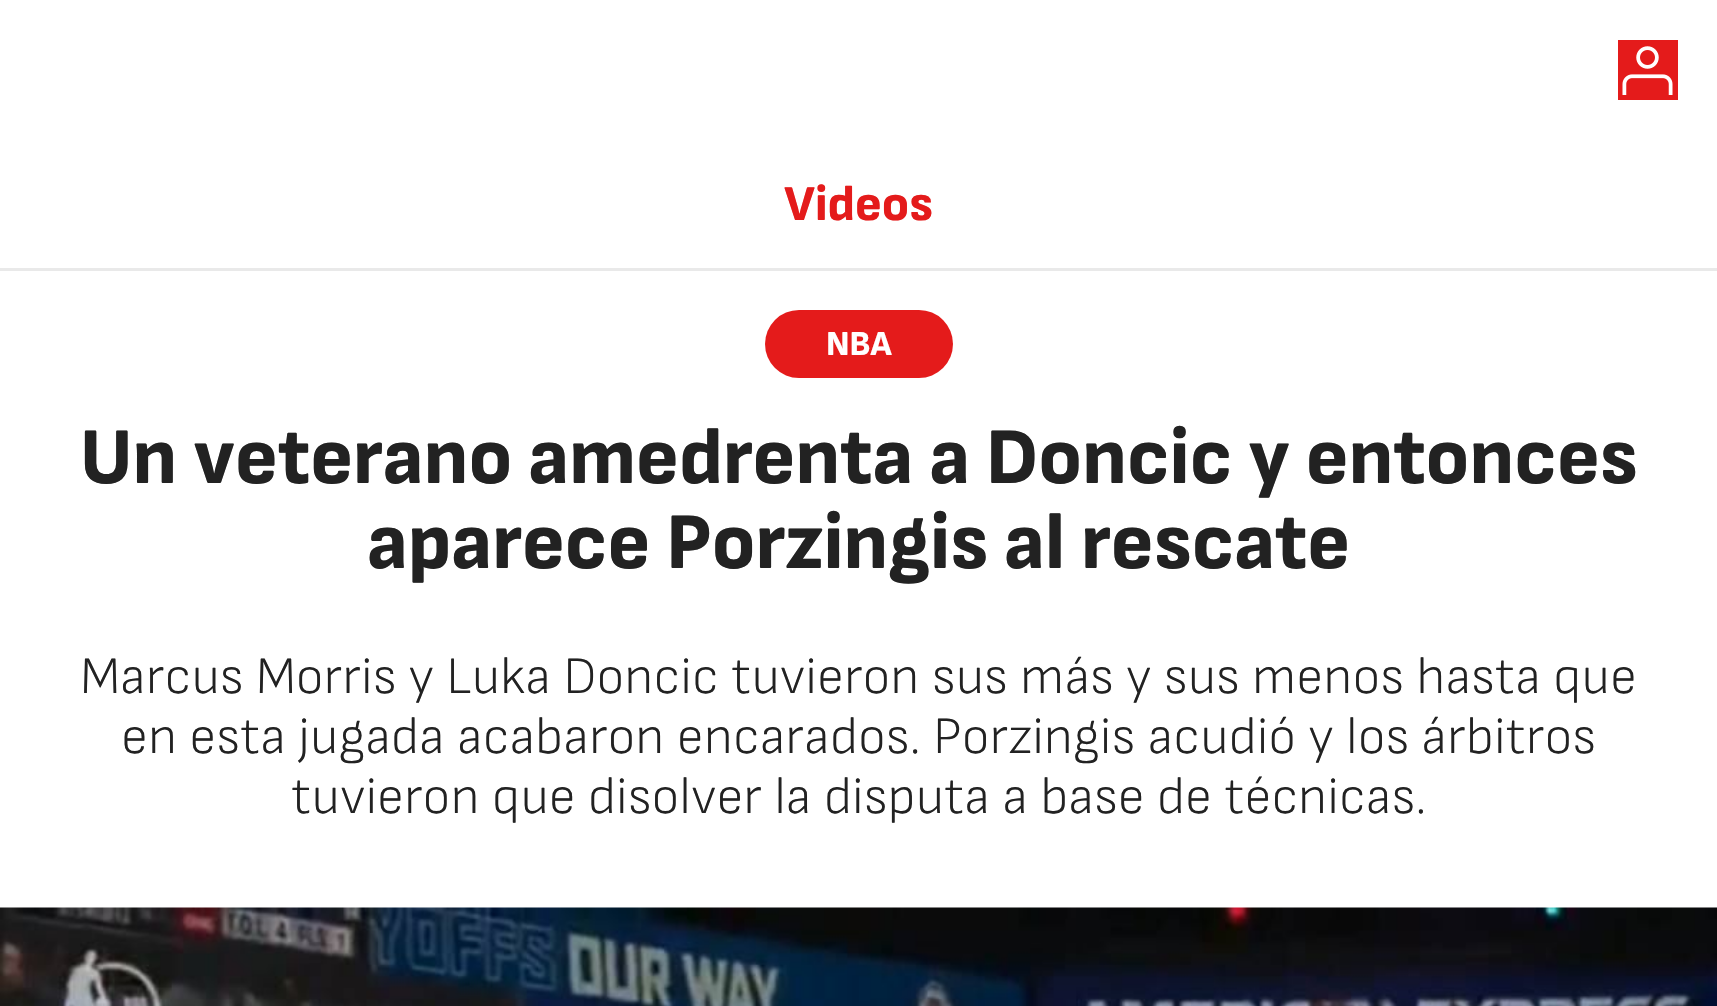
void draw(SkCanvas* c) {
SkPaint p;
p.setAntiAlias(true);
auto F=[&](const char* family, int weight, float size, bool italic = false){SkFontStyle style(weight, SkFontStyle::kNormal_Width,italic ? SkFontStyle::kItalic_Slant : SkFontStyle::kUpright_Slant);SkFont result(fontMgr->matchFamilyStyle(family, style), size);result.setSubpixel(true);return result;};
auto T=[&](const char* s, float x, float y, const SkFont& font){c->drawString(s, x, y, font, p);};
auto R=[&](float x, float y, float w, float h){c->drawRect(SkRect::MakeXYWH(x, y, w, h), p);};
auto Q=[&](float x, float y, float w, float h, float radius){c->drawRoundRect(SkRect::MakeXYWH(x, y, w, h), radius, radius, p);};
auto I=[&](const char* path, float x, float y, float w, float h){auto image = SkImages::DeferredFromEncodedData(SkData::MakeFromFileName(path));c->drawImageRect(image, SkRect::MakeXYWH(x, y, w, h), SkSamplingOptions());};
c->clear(0xffffffff);
p.setColor(0xffe41b1b);
R(1618,40,60,60);
I("1.png",1622,46,51,49);
auto f1 = F("Sofia Sans",800,50);
T("Videos",784,220,f1);
p.setColor(0xffe9e9e9);
R(0,268,1717,3);
p.setColor(0xffe41b1b);
Q(765,310,188,68,34);
auto f2 = F("Sofia Sans",800,35);
p.setColor(0xffffffff);
T("NBA",826,355,f2);
auto f3 = F("Sofia Sans",800,80);
p.setColor(0xff222222);
T("Un veterano amedrenta a Doncic y entonces",80,483,f3);
T("aparece Porzingis al rescate",367,568,f3);
auto f4 = F("Sofia Sans",300,52.5);
T("Marcus Morris y Luka Doncic tuvieron sus más y sus menos hasta que",80,693,f4);
T("en esta jugada acabaron encarados. Porzingis acudió y los árbitros",121,753,f4);
T("tuvieron que disolver la disputa a base de técnicas.",291,813,f4);
I("2.png",0,907,1717,99);
}
